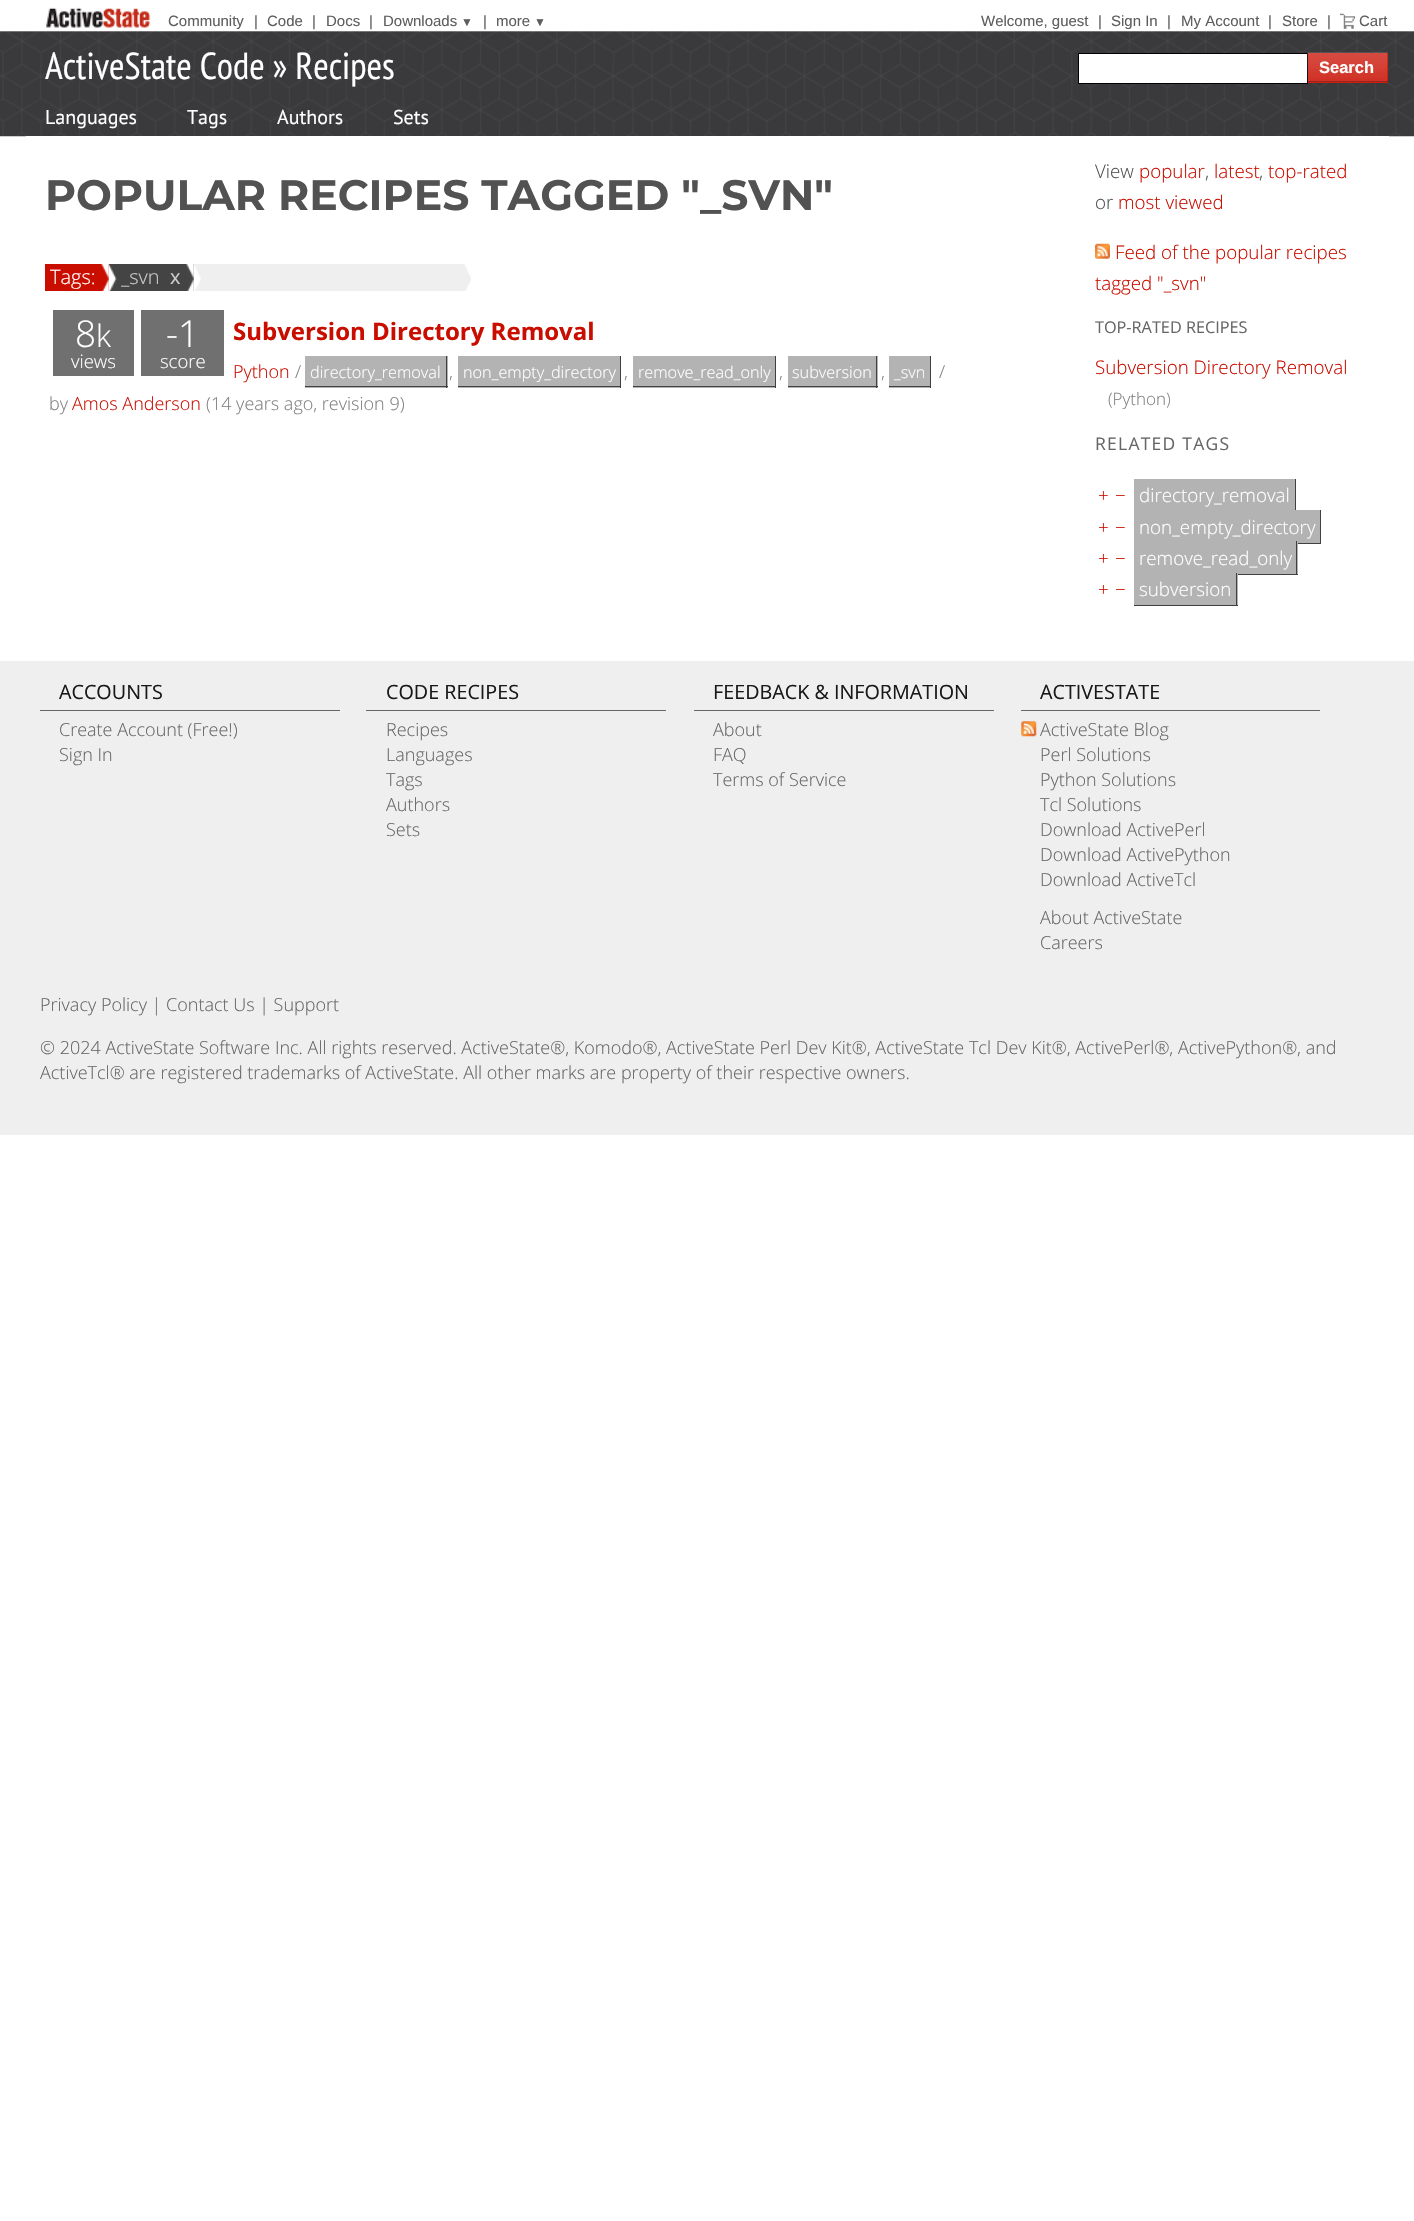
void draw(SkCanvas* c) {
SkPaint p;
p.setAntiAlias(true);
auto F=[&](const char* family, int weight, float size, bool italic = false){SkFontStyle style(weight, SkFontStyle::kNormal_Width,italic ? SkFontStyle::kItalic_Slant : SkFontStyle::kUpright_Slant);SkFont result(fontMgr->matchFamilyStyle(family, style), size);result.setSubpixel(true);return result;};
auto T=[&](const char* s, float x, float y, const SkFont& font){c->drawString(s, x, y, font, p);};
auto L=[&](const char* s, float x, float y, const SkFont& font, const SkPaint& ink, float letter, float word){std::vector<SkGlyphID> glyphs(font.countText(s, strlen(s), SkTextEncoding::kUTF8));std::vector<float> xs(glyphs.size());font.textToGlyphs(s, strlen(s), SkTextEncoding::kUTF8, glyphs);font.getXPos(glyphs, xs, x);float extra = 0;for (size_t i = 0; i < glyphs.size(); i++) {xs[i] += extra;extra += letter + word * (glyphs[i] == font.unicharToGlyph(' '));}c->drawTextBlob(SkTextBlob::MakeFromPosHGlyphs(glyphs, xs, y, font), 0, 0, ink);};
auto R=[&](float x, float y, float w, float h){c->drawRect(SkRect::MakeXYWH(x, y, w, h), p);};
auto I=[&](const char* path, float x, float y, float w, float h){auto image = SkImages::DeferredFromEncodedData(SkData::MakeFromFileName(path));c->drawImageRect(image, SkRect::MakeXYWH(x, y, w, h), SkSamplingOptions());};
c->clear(0xffffffff);
I("1.png",0,31,1414,106);
I("2.png",46,7,105,21);
auto f1 = F("Liberation Sans",400,15);
p.setColor(0xff5e5e5e);
T("Community",168,26,f1);
T("|",254,26,f1);
T("Code",267,26,f1);
T("|",312,26,f1);
T("Docs",326,26,f1);
T("|",369,26,f1);
T("Downloads",383,26,f1);
auto f2 = F("Liberation Sans",400,12);
T("▼",461,26,f2);
T("|",483,26,f1);
T("more",496,26,f1);
T("▼",534,26,f2);
T("Welcome, guest",981,26,f1);
T("|",1098,26,f1);
T("Sign In",1111,26,f1);
T("|",1167,26,f1);
T("My Account",1181,26,f1);
T("|",1268,26,f1);
T("Store",1282,26,f1);
T("|",1327,26,f1);
I("3.png",1340,13,15,16);
T("Cart",1359,26,f1);
auto f3 = F("PT Sans Narrow",400,37.5);
p.setColor(0xffffffff);
T("ActiveState Code » Recipes",45,79,f3);
c->drawRect(SkRect::MakeXYWH(1078.5,53.5,229,30),p);
p.setStroke(true);
p.setStrokeWidth(1);
p.setColor(0xff000000);
c->drawRect(SkRect::MakeXYWH(1078.5,53.5,229,30),p);
p.setStroke(false);
p.setColor(0xffc90e00);
R(1308,53,80,30);
I("4.png",1307,52,81,31);
p.setColor(0x40000000);
R(1308,81,80,1);
auto f4 = F("Liberation Sans",700,16.5);
p.setColor(0xffffffff);
T("Search",1319,73,f4);
auto f5 = F("PT Sans",400,20);
T("Languages",45,124,f5);
T("Tags",187,124,f5);
T("Authors",277,124,f5);
T("Sets",393,124,f5);
R(26,136,1363,1);
auto f6 = F("Montserrat",700,42.5);
p.setColor(0xff525252);
T("POPULAR RECIPES TAGGED \"_SVN\"",45,210,f6);
p.setColor(0xffc90e00);
R(45,264,64,27);
auto f7 = F("Open Sans",300,20);
p.setColor(0xffffffff);
T("Tags:",50,284,f7);
I("5.png",101,264,8,27);
p.setColor(0xff444444);
R(109,264,85,27);
I("6.png",108,264,9,27);
p.setColor(0xffcccccc);
T("_svn",121,284,f7);
auto f8 = F("Open Sans",400,20);
T("x",170,284,f8);
I("7.png",186,264,8,27);
p.setColor(0xffefefef);
R(194,264,277,27);
I("8.png",193,265,8,26);
I("9.png",464,264,7,27);
p.setColor(0xff707070);
R(53,310,81,66);
auto f9 = F("Open Sans",300,37);
p.setColor(0xffffffff);
T("8",75,347,f9);
auto f10 = F("Open Sans",300,31);
T("k",96,347,f10);
auto f11 = F("Open Sans",300,18.5);
T("views",71,368,f11);
p.setColor(0xff707070);
R(141,310,83,66);
p.setColor(0xffffffff);
T("-1",166,347,f9);
T("score",160,368,f11);
auto f12 = F("Open Sans",700,24);
p.setColor(0xffc90e00);
T("Subversion Directory Removal",233,340,f12);
auto f13 = F("Open Sans",300,18);
T("Python",233,378,f13);
p.setColor(0xff808080);
T("/",295,378,f13);
p.setColor(0xffb3b3b3);
R(305,356,143,32);
auto f14 = F("Open Sans",300,16.25);
p.setColor(0xffffffff);
T("directory_removal",310,378,f14);
p.setColor(0xff404041);
R(446,356,1,32);
R(305,386,143,1);
p.setColor(0xff808080);
T(",",449,378,f13);
p.setColor(0xffb3b3b3);
R(458,356,162,32);
p.setColor(0xffffffff);
T("non_empty_directory",463,378,f14);
p.setColor(0xff404041);
R(620,356,1,32);
R(458,386,163,1);
p.setColor(0xff808080);
T(",",624,378,f13);
p.setColor(0xffb3b3b3);
R(633,356,142,32);
p.setColor(0xffffffff);
T("remove_read_only",638,378,f14);
p.setColor(0xff404041);
R(775,356,1,32);
R(633,386,143,1);
p.setColor(0xff808080);
T(",",779,378,f13);
p.setColor(0xffb3b3b3);
R(788,356,90,32);
p.setColor(0xffffffff);
T("subversion",792,378,f14);
p.setColor(0xff404041);
R(876,356,1,32);
R(788,386,90,1);
p.setColor(0xff808080);
T(",",881,378,f13);
p.setColor(0xffb3b3b3);
R(889,356,41,32);
p.setColor(0xffffffff);
T("_svn",894,378,f14);
p.setColor(0xff404041);
R(930,356,1,32);
R(889,386,42,1);
p.setColor(0xff808080);
T("/",939,378,f13);
T("by",49,410,f13);
p.setColor(0xffc90e00);
T("Amos Anderson",72,410,f13);
p.setColor(0xff808080);
T("(14 years ago, revision 9)",206,410,f13);
auto f15 = F("Open Sans",300,18.75);
p.setColor(0xff525252);
T("View",1095,178,f15);
p.setColor(0xffc90e00);
T("popular",1139,178,f15);
p.setColor(0xff525252);
T(",",1205,178,f15);
p.setColor(0xffc90e00);
T("latest",1214,178,f15);
p.setColor(0xff525252);
T(",",1259,178,f15);
p.setColor(0xffc90e00);
T("top-rated",1268,178,f15);
p.setColor(0xff525252);
T("or",1095,209,f15);
p.setColor(0xffc90e00);
T("most viewed",1118,209,f15);
I("10.png",1095,243,15,16);
T("Feed of the popular recipes",1115,259,f15);
T("tagged \"_svn\"",1095,290,f15);
auto f16 = F("Open Sans",400,16.25);
p.setColor(0xff666666);
T("TOP-RATED RECIPES",1095,333,f16);
p.setColor(0xffc90e00);
T("Subversion Directory Removal",1095,374,f15);
auto f17 = F("Open Sans",300,17);
p.setColor(0xff808080);
T("(Python)",1108,405,f17);
auto f18 = F("Open Sans",400,17.5);
p.setColor(0xff666666);
L("RELATED TAGS",1095,450,f18,p,1.25,0);
p.setColor(0xffc90e00);
T("+",1098,502,f15);
T("−",1115,502,f15);
p.setColor(0xffb3b3b3);
R(1134,479,161,31);
p.setColor(0xffffffff);
T("directory_removal",1139,502,f15);
p.setColor(0xff404041);
R(1295,479,1,34);
p.setColor(0xffc90e00);
T("+",1098,534,f15);
T("−",1115,534,f15);
p.setColor(0xffb3b3b3);
R(1134,510,186,33);
p.setColor(0xffffffff);
T("non_empty_directory",1139,534,f15);
p.setColor(0xff404041);
R(1320,510,1,34);
R(1298,543,23,1);
p.setColor(0xffc90e00);
T("+",1098,565,f15);
T("−",1115,565,f15);
p.setColor(0xffb3b3b3);
R(1134,543,164,31);
p.setColor(0xffffffff);
T("remove_read_only",1139,565,f15);
p.setColor(0xff404041);
R(1296,541,1,34);
R(1238,574,60,1);
p.setColor(0xffc90e00);
T("+",1098,596,f15);
T("−",1115,596,f15);
p.setColor(0xffb3b3b3);
R(1134,574,104,31);
p.setColor(0xffffffff);
T("subversion",1139,596,f15);
p.setColor(0xff404041);
R(1236,573,1,33);
R(1134,605,104,1);
p.setColor(0xffefefef);
R(0,661,1414,474);
p.setColor(0xff666666);
R(40,710,300,1);
auto f19 = F("Open Sans",400,19.75);
p.setColor(0xff191919);
T("ACCOUNTS",59,699,f19);
p.setColor(0xff666666);
T("Create Account (Free!)",59,736,f13);
T("Sign In",59,761,f13);
R(366,710,300,1);
p.setColor(0xff191919);
T("CODE RECIPES",386,699,f19);
p.setColor(0xff666666);
T("Recipes",386,736,f13);
T("Languages",386,761,f13);
T("Tags",386,786,f13);
T("Authors",386,811,f13);
T("Sets",386,836,f13);
R(694,710,300,1);
p.setColor(0xff191919);
T("FEEDBACK & INFORMATION",713,699,f19);
p.setColor(0xff666666);
T("About",713,736,f13);
T("FAQ",713,761,f13);
T("Terms of Service",713,786,f13);
R(1021,710,299,1);
p.setColor(0xff191919);
T("ACTIVESTATE",1040,699,f19);
I("11.png",1021,721,16,16);
p.setColor(0xff666666);
T("ActiveState Blog",1040,736,f13);
T("Perl Solutions",1040,761,f13);
T("Python Solutions",1040,786,f13);
T("Tcl Solutions",1040,811,f13);
T("Download ActivePerl",1040,836,f13);
T("Download ActivePython",1040,861,f13);
T("Download ActiveTcl",1040,886,f13);
T("About ActiveState",1040,924,f13);
T("Careers",1040,949,f13);
T("Privacy Policy | Contact Us | Support",40,1011,f13);
T("© 2024 ActiveState Software Inc. All rights reserved. ActiveState®, Komodo®, ActiveState Perl Dev Kit®, ActiveState Tcl Dev Kit®, ActivePerl®, ActivePython®, and",40,1054,f13);
T("ActiveTcl® are registered trademarks of ActiveState. All other marks are property of their respective owners.",40,1079,f13);
}
